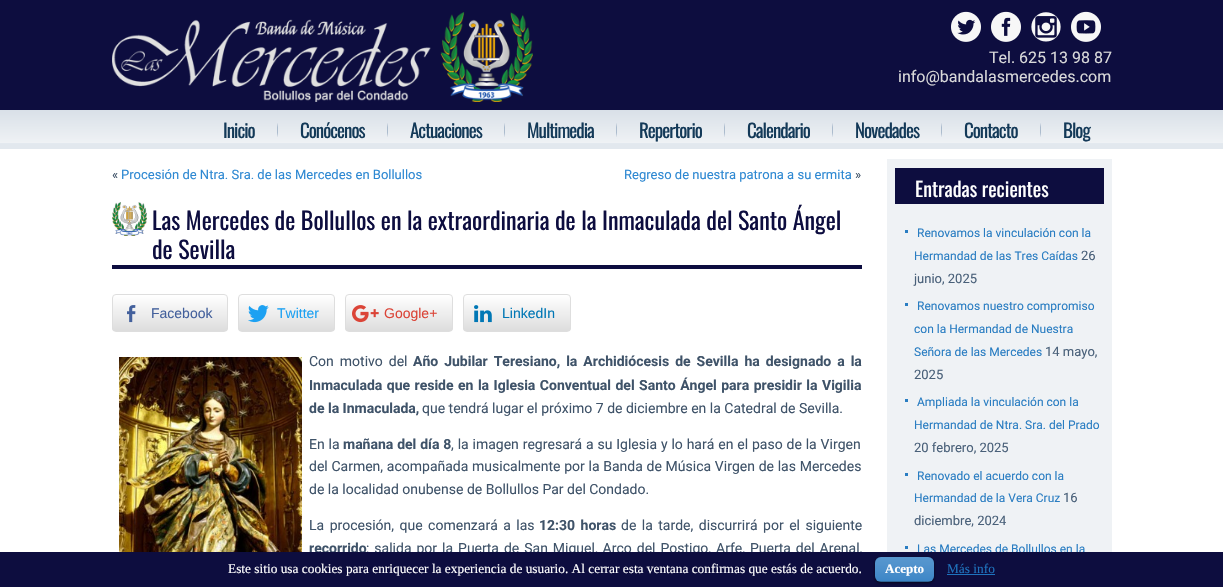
void draw(SkCanvas* c) {
SkPaint p;
p.setAntiAlias(true);
auto F=[&](const char* family, int weight, float size, bool italic = false){SkFontStyle style(weight, SkFontStyle::kNormal_Width,italic ? SkFontStyle::kItalic_Slant : SkFontStyle::kUpright_Slant);SkFont result(fontMgr->matchFamilyStyle(family, style), size);result.setSubpixel(true);return result;};
auto T=[&](const char* s, float x, float y, const SkFont& font){c->drawString(s, x, y, font, p);};
auto L=[&](const char* s, float x, float y, const SkFont& font, const SkPaint& ink, float letter, float word){std::vector<SkGlyphID> glyphs(font.countText(s, strlen(s), SkTextEncoding::kUTF8));std::vector<float> xs(glyphs.size());font.textToGlyphs(s, strlen(s), SkTextEncoding::kUTF8, glyphs);font.getXPos(glyphs, xs, x);float extra = 0;for (size_t i = 0; i < glyphs.size(); i++) {xs[i] += extra;extra += letter + word * (glyphs[i] == font.unicharToGlyph(' '));}c->drawTextBlob(SkTextBlob::MakeFromPosHGlyphs(glyphs, xs, y, font), 0, 0, ink);};
auto R=[&](float x, float y, float w, float h){c->drawRect(SkRect::MakeXYWH(x, y, w, h), p);};
auto Q=[&](float x, float y, float w, float h, float radius){c->drawRoundRect(SkRect::MakeXYWH(x, y, w, h), radius, radius, p);};
auto I=[&](const char* path, float x, float y, float w, float h){auto image = SkImages::DeferredFromEncodedData(SkData::MakeFromFileName(path));c->drawImageRect(image, SkRect::MakeXYWH(x, y, w, h), SkSamplingOptions());};
auto P=[&](const char* data, bool evenOdd = false){SkPath result = *SkParsePath::FromSVGString(data);if (evenOdd) result.setFillType(SkPathFillType::kEvenOdd);return result;};
c->clear(0xffffffff);
p.setColor(0xff0d0d3f);
R(0,0,1223,110);
I("1.png",112,12,421,90);
I("2.png",951,11,30,31);
I("3.png",991,11,30,31);
I("4.png",1031,12,30,30);
I("5.png",1071,11,30,31);
auto f1 = F("Roboto",400,16);
p.setColor(0xffd9d9da);
T("Tel. 625 13 98 87",989,63,f1);
T("info@bandalasmercedes.com",898,82,f1);
{
const SkColor colors[] = {0xffd9e0e8,0xffeff2f5,0xffe2e8ee,0xffe2e8ee};
const float stops[] = {0,.85,.86,1};
const SkPoint ends[] = {{612,110}, {612,149}};
p.setShader(SkGradientShader::MakeLinear(ends, colors, stops, 4, SkTileMode::kClamp));
p.setAlpha(255);
}
R(0,110,1223,39);
auto f2 = F("Oswald",400,19);
p.setShader(nullptr);
p.setColor(0xff133958);
L("Inicio",223,138,f2,p,-1,0);
I("6.png",277,123,1,14);
L("Conócenos",300,138,f2,p,-1,0);
I("6.png",387,123,1,14);
L("Actuaciones",410,138,f2,p,-1,0);
I("6.png",504,123,1,14);
L("Multimedia",527,138,f2,p,-1,0);
I("6.png",616,123,1,14);
L("Repertorio",639,138,f2,p,-1,0);
I("6.png",724,123,1,14);
L("Calendario",747,138,f2,p,-1,0);
I("6.png",832,123,1,14);
L("Novedades",855,138,f2,p,-1,0);
I("6.png",941,123,1,14);
L("Contacto",964,138,f2,p,-1,0);
I("6.png",1040,123,1,14);
L("Blog",1063,138,f2,p,-1,0);
auto f3 = F("Roboto",400,13);
p.setColor(0xff3f5369);
T("«",112,179,f3);
p.setColor(0xff2d88d2);
T("Procesión de Ntra. Sra. de las Mercedes en Bollullos",121,179,f3);
T("Regreso de nuestra patrona a su ermita",624,179,f3);
p.setColor(0xff3f5369);
T("»",855,179,f3);
I("7.png",112,202,35,34);
p.setColor(0xff0d0d3f);
R(112,265,750,4);
auto f4 = F("Oswald",400,24);
T("Las Mercedes de Bollullos en la extraordinaria de la Inmaculada del Santo Ángel",152,230,f4);
T("de Sevilla",152,259,f4);
c->save();
c->clipPath(P("M116 294h108c2 0 4 2 4 4v30c0 2-2 4-4 4h-108c-2 0-4-2-4-4v-30c0-2 2-4 4-4z"),true);
{
const SkColor colors[] = {0xffffffff,0xffdddddd};
const float stops[] = {0,1};
const SkPoint ends[] = {{170,295}, {170,331}};
p.setShader(SkGradientShader::MakeLinear(ends, colors, stops, 2, SkTileMode::kClamp));
p.setAlpha(255);
}
R(112,295,116,36);
c->restore();
p.setStroke(true);
p.setStrokeWidth(1);
p.setShader(nullptr);
p.setColor(0xffdedede);
c->drawRoundRect(SkRect::MakeXYWH(112.5,294.5,115,37),3.5,3.5,p);
I("8.png",127,305,9,18);
auto f5 = F("Liberation Sans",400,14);
p.setStroke(false);
p.setColor(0xff43609c);
T("Facebook",151,318,f5);
c->save();
c->clipPath(P("M242 294h89c2 0 4 2 4 4v30c0 2-2 4-4 4h-89c-2 0-4-2-4-4v-30c0-2 2-4 4-4z"),true);
{
const SkColor colors[] = {0xffffffff,0xffdddddd};
const float stops[] = {0,1};
const SkPoint ends[] = {{287,295}, {287,331}};
p.setShader(SkGradientShader::MakeLinear(ends, colors, stops, 2, SkTileMode::kClamp));
p.setAlpha(255);
}
R(238,295,97,36);
c->restore();
p.setStroke(true);
p.setShader(nullptr);
p.setColor(0xffdedede);
c->drawRoundRect(SkRect::MakeXYWH(238.5,294.5,96,37),3.5,3.5,p);
I("9.png",248,305,21,18);
p.setStroke(false);
p.setColor(0xff1da1f2);
T("Twitter",277,318,f5);
c->save();
c->clipPath(P("M349 294h100c2 0 4 2 4 4v30c0 2-2 4-4 4h-100c-2 0-4-2-4-4v-30c0-2 2-4 4-4z"),true);
{
const SkColor colors[] = {0xffffffff,0xffdddddd};
const float stops[] = {0,1};
const SkPoint ends[] = {{399,295}, {399,331}};
p.setShader(SkGradientShader::MakeLinear(ends, colors, stops, 2, SkTileMode::kClamp));
p.setAlpha(255);
}
R(345,295,108,36);
c->restore();
p.setStroke(true);
p.setShader(nullptr);
p.setColor(0xffdedede);
c->drawRoundRect(SkRect::MakeXYWH(345.5,294.5,107,37),3.5,3.5,p);
I("10.png",352,305,27,18);
p.setStroke(false);
p.setColor(0xffdb4437);
T("Google+",384,318,f5);
c->save();
c->clipPath(P("M467 294h100c2 0 4 2 4 4v30c0 2-2 4-4 4h-100c-2 0-4-2-4-4v-30c0-2 2-4 4-4z"),true);
{
const SkColor colors[] = {0xffffffff,0xffdddddd};
const float stops[] = {0,1};
const SkPoint ends[] = {{517,295}, {517,331}};
p.setShader(SkGradientShader::MakeLinear(ends, colors, stops, 2, SkTileMode::kClamp));
p.setAlpha(255);
}
R(463,295,108,36);
c->restore();
p.setStroke(true);
p.setShader(nullptr);
p.setColor(0xffdedede);
c->drawRoundRect(SkRect::MakeXYWH(463.5,294.5,107,37),3.5,3.5,p);
I("11.png",474,305,18,18);
p.setStroke(false);
p.setColor(0xff0077b5);
T("LinkedIn",502,318,f5);
I("12.png",119,357,183,195);
auto f6 = F("Roboto",400,14);
p.setColor(0xff3f5369);
L("Con motivo del",309,366,f6,p,0,2.5);
auto f7 = F("Roboto",700,14);
L("Año Jubilar Teresiano, la Archidiócesis de Sevilla ha designado a la",413,366,f7,p,0,2.5);
L("Inmaculada que reside en la Iglesia Conventual del Santo Ángel para presidir la Vigilia",309,390,f7,p,0,1);
T("de la Inmaculada,",309,413,f7);
T("que tendrá lugar el próximo 7 de diciembre en la Catedral de Sevilla.",422,413,f6);
L("En la",309,449,f6,p,0,.4);
L("mañana del día 8",343,449,f7,p,0,.4);
L(", la imagen regresará a su Iglesia y lo hará en el paso de la Virgen",451,449,f6,p,0,.4);
L("del Carmen, acompañada musicalmente por la Banda de Música Virgen de las Mercedes",309,471,f6,p,0,.25);
T("de la localidad onubense de Bollullos Par del Condado.",309,494,f6);
L("La procesión, que comenzará a las",309,530,f6,p,0,2);
L("12:30 horas",539,530,f7,p,0,2);
L("de la tarde, discurrirá por el siguiente",621,530,f6,p,0,2);
T("recorrido",309,553,f7);
L(": salida por la Puerta de San Miguel, Arco del Postigo, Arfe, Puerta del Arenal,",366,553,f6,p,0,1.5);
p.setColor(0xffeff2f5);
R(887,159,225,393);
p.setColor(0xff0d0d3f);
R(895,168,209,36);
auto f8 = F("Oswald",400,20);
p.setColor(0xffffffff);
T("Entradas recientes",915,197,f8);
p.setColor(0xff297dc2);
R(905,230,3,3);
auto f9 = F("Roboto",400,12);
T("Renovamos la vinculación con la",917,237,f9);
T("Hermandad de las Tres Caídas",914,260,f9);
p.setColor(0xff496079);
T("26",1081,260,f3);
T("junio, 2025",914,283,f3);
p.setColor(0xff297dc2);
R(905,303,3,3);
T("Renovamos nuestro compromiso",917,310,f9);
T("con la Hermandad de Nuestra",914,333,f9);
T("Señora de las Mercedes",914,356,f9);
p.setColor(0xff496079);
T("14 mayo,",1045,356,f3);
T("2025",914,379,f3);
p.setColor(0xff297dc2);
R(905,399,3,3);
T("Ampliada la vinculación con la",917,406,f9);
T("Hermandad de Ntra. Sra. del Prado",914,429,f9);
p.setColor(0xff496079);
T("20 febrero, 2025",914,452,f3);
p.setColor(0xff297dc2);
R(905,473,3,3);
T("Renovado el acuerdo con la",917,480,f9);
T("Hermandad de la Vera Cruz",914,502,f9);
p.setColor(0xff496079);
T("16",1063,502,f3);
T("diciembre, 2024",914,525,f3);
p.setColor(0xff297dc2);
R(905,546,3,3);
T("Las Mercedes de Bollullos en la",917,553,f9);
p.setColor(0xff0d0d3f);
R(0,552,1223,35);
auto f10 = F("Liberation Serif",400,13.35);
p.setColor(0xffffffff);
T("Este sitio usa cookies para enriquecer la experiencia de usuario. Al cerrar esta ventana confirmas que estás de acuerdo.",228,573,f10);
p.setColor(0x99000000);
p.setMaskFilter(SkMaskFilter::MakeBlur(kNormal_SkBlurStyle, 1.5));
c->drawRoundRect(SkRect::MakeXYWH(875,558,59,25),6,6,p);
p.setMaskFilter(nullptr);
p.setColor(0xff1e73be);
Q(875,557,59,25,6);
I("13.png",875,557,59,25);
p.setColor(0x40000000);
R(878,581,53,1);
auto f11 = F("Liberation Serif",700,13);
p.setColor(0xffffffff);
T("Acepto",885,573,f11);
p.setColor(0xff1e73be);
T("Más info",947,573,f10);
R(947,574,48,1);
}
